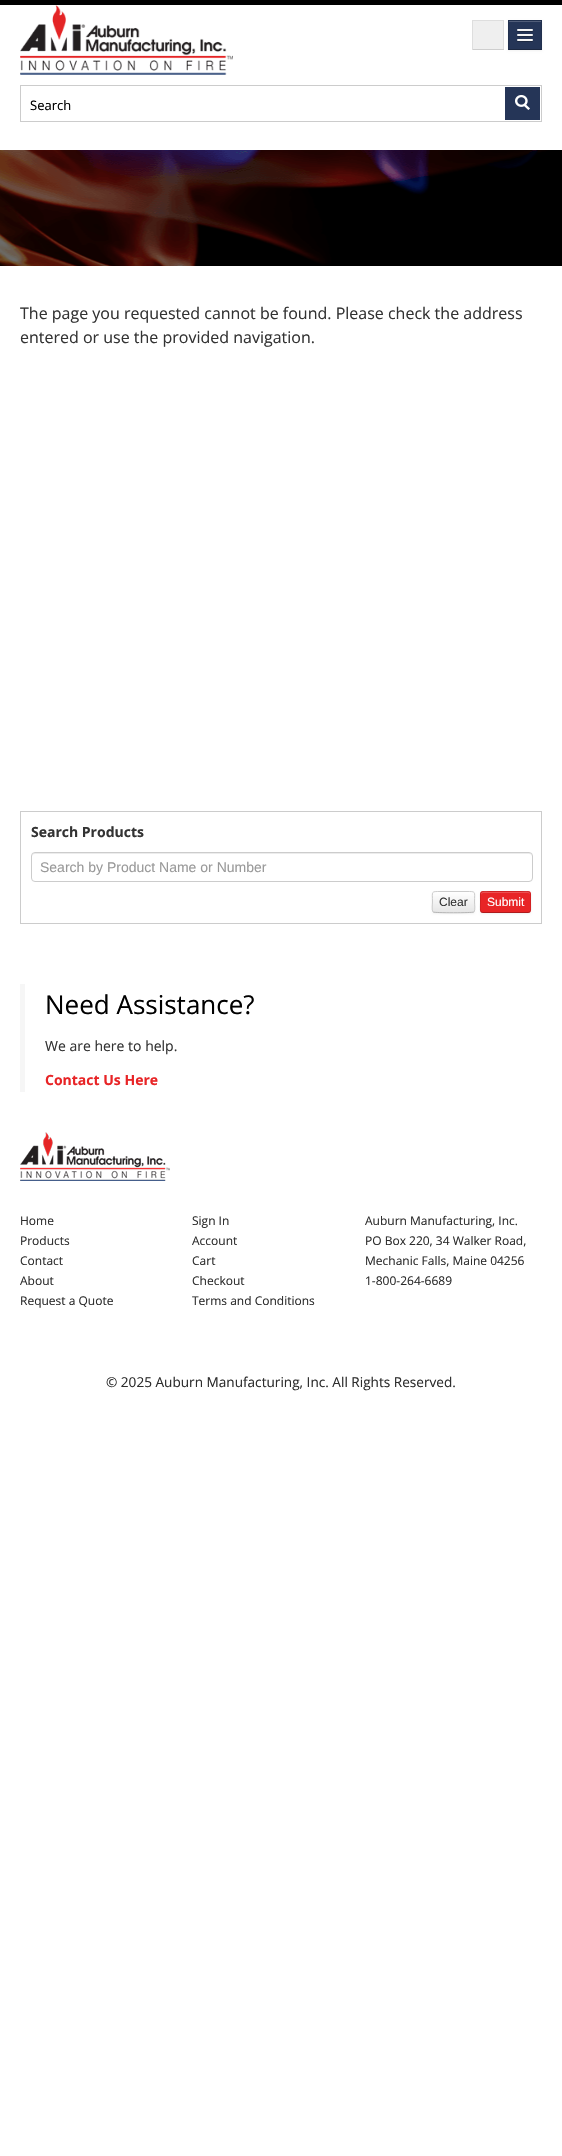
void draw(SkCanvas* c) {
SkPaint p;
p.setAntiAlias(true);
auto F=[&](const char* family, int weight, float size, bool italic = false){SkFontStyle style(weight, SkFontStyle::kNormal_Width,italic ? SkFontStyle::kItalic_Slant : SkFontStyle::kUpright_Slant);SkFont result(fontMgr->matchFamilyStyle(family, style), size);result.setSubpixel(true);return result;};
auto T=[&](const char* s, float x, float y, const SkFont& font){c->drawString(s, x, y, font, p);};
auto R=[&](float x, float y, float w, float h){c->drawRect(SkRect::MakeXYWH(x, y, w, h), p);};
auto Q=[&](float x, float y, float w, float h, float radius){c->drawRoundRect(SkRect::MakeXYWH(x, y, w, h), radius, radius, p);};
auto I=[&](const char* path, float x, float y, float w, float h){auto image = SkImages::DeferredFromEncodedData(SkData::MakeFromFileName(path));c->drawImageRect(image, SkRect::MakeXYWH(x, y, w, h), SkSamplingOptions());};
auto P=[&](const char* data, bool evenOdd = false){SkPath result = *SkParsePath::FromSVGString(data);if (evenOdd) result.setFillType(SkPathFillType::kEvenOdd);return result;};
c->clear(0xffffffff);
p.setColor(0xff000000);
R(0,0,562,5);
I("1.png",20,5,213,70);
p.setColor(0xffefefef);
R(473,21,30,28);
p.setColor(0xffdedede);
R(472,20,32,1);
R(503,20,1,30);
p.setColor(0xffcecece);
R(472,49,32,1);
p.setColor(0xffdedede);
R(472,20,1,30);
p.setColor(0x0d000000);
p.setMaskFilter(SkMaskFilter::MakeBlur(kNormal_SkBlurStyle, 1));
c->drawRect(SkRect::MakeXYWH(508,21,34,30),p);
p.setMaskFilter(nullptr);
p.setColor(0xff253557);
R(508,20,34,30);
p.setColor(0xff515d79);
R(509,21,32,1);
p.setColor(0xff21304e);
c->drawPath(P("M508 20h34l-1 1h-32z"),p);
p.setColor(0x1a000000);
c->drawPath(P("M542 20v30l-1-1v-28z"),p);
p.setColor(0x40000000);
c->drawPath(P("M542 50h-34l1-1h32z"),p);
p.setColor(0x1a000000);
c->drawPath(P("M508 50v-30l1 1v28z"),p);
p.setColor(0xff1c2841);
c->drawPath(P("M517 30.5c-1 2 3 1.5 3.5 1.5h9c.5 0 4.5 .5 3.5-1.5c-1 1-6.5 .5-8 .5c-1.5 0-7 .5-8-.5z"),p);
p.setColor(0xfff5f5f5);
Q(517,29,16,2,1);
p.setColor(0xff1c2841);
c->drawPath(P("M517 35.5c-1 2 3 1.5 3.5 1.5h9c.5 0 4.5 .5 3.5-1.5c-1 1-6.5 .5-8 .5c-1.5 0-7 .5-8-.5z"),p);
p.setColor(0xfff5f5f5);
Q(517,34,16,2,1);
p.setColor(0xff1c2841);
c->drawPath(P("M517 40.5c-1 2 3 1.5 3.5 1.5h9c.5 0 4.5 .5 3.5-1.5c-1 1-6.5 .5-8 .5c-1.5 0-7 .5-8-.5z"),p);
p.setColor(0xfff5f5f5);
Q(517,39,16,2,1);
p.setStroke(true);
p.setStrokeWidth(1);
p.setColor(0xffcccccc);
c->drawRect(SkRect::MakeXYWH(20.5,85.5,521,36),p);
auto f1 = F("Open Sans",400,13);
p.setStroke(false);
p.setColor(0xff000000);
T("Search",30,110,f1);
p.setColor(0xff253557);
R(505,87,35,33);
I("2.png",515,95,15,15);
I("3.png",0,150,562,116);
auto f2 = F("Open Sans",400,16);
p.setColor(0xff333333);
T("The page you requested cannot be found. Please check the address",20,319,f2);
T("entered or use the provided navigation.",20,343,f2);
p.setStroke(true);
p.setColor(0xffcccccc);
c->drawRect(SkRect::MakeXYWH(20.5,811.5,521,112),p);
auto f3 = F("Open Sans",700,14);
p.setStroke(false);
p.setColor(0xff333333);
T("Search Products",31,837,f3);
p.setColor(0xffececec);
c->drawPath(P("M35 854h494c2 0 3 1 3 3c0-2-1-4-3-4h-494c-2 0-3 2-3 4c0-2 1-3 3-3z"),p);
p.setStroke(true);
p.setColor(0xffcccccc);
c->drawRoundRect(SkRect::MakeXYWH(31.5,852.5,501,29),3.5,3.5,p);
auto f4 = F("Liberation Sans",400,14);
p.setStroke(false);
p.setColor(0xff999999);
T("Search by Product Name or Number",40,872,f4);
p.setColor(0x0d000000);
p.setMaskFilter(SkMaskFilter::MakeBlur(kNormal_SkBlurStyle, 1));
c->drawRoundRect(SkRect::MakeXYWH(432,892,43,22),3,3,p);
p.setMaskFilter(nullptr);
c->save();
c->clipPath(P("M435 891h37c1.5 0 3 1.5 3 3v16c0 1.5-1.5 3-3 3h-37c-1.5 0-3-1.5-3-3v-16c0-1.5 1.5-3 3-3z"),true);
{
const SkColor colors[] = {0xffffffff,0xffe6e6e6};
const float stops[] = {0,1};
const SkPoint ends[] = {{454,892}, {454,912}};
p.setShader(SkGradientShader::MakeLinear(ends, colors, stops, 2, SkTileMode::kClamp));
p.setAlpha(255);
}
R(432,892,43,20);
c->restore();
p.setStroke(true);
p.setShader(nullptr);
p.setColor(0xffb3b3b3);
c->drawPath(P("M474 912c-1.5 1-39.5 1-41 0"),p);
p.setColor(0xffcccccc);
c->drawPath(P("M433 912c-1.5-2-.5-8-.5-10c0-11-2-10.5 8.5-10.5h25c10.5 0 8.5-.5 8.5 10.5c0 2 1 8-.5 10"),p);
auto f5 = F("Liberation Sans",400,12);
p.setStroke(false);
p.setColor(0xff333333);
T("Clear",439,906,f5);
p.setColor(0x0d000000);
p.setMaskFilter(SkMaskFilter::MakeBlur(kNormal_SkBlurStyle, 1));
c->drawRoundRect(SkRect::MakeXYWH(480,892,51,22),3,3,p);
p.setMaskFilter(nullptr);
p.setColor(0xffe82426);
Q(480,891,51,22,3);
p.setColor(0xffed5051);
c->drawPath(P("M483 893h45c1 0 2 1 2 2c0-5-6-3-10-3h-30c-3 0-9-2-9 3c0-1 1-2 2-2z"),p);
p.setStroke(true);
p.setColor(0x40000000);
c->drawPath(P("M530 912l-2 .5h-45l-2-.5"),p);
p.setColor(0x1a000000);
c->drawPath(P("M481 912c-1.5-2-.5-8-.5-10c0-11.5-2-10.5 10-10.5h30c12 0 10-1 10 10.5c0 2 1 8-.5 10"),p);
p.setStroke(false);
p.setColor(0xffffffff);
T("Submit",487,906,f5);
p.setColor(0xfff6f6f6);
R(20,984,5,108);
auto f6 = F("Open Sans",400,26);
p.setColor(0xff000000);
T("Need Assistance?",45,1014,f6);
auto f7 = F("Open Sans",400,14);
p.setColor(0xff333333);
T("We are here to help.",45,1051,f7);
p.setColor(0xffe82426);
T("Contact Us Here",45,1085,f3);
I("4.png",20,1132,150,49);
auto f8 = F("Open Sans",400,12);
p.setColor(0xff2d2d2d);
T("Home",20,1225,f8);
T("Products",20,1245,f8);
T("Contact",20,1265,f8);
T("About",20,1285,f8);
T("Request a Quote",20,1305,f8);
T("Sign In",192,1225,f8);
T("Account",192,1245,f8);
T("Cart",192,1265,f8);
T("Checkout",192,1285,f8);
T("Terms and Conditions",192,1305,f8);
T("Auburn Manufacturing, Inc.",365,1225,f8);
T("PO Box 220, 34 Walker Road,",365,1245,f8);
T("Mechanic Falls, Maine 04256",365,1265,f8);
T("1-800-264-6689",365,1285,f8);
auto f9 = F("Open Sans",400,13.6);
T("© 2025 Auburn Manufacturing, Inc. All Rights Reserved.",106,1387,f9);
}
